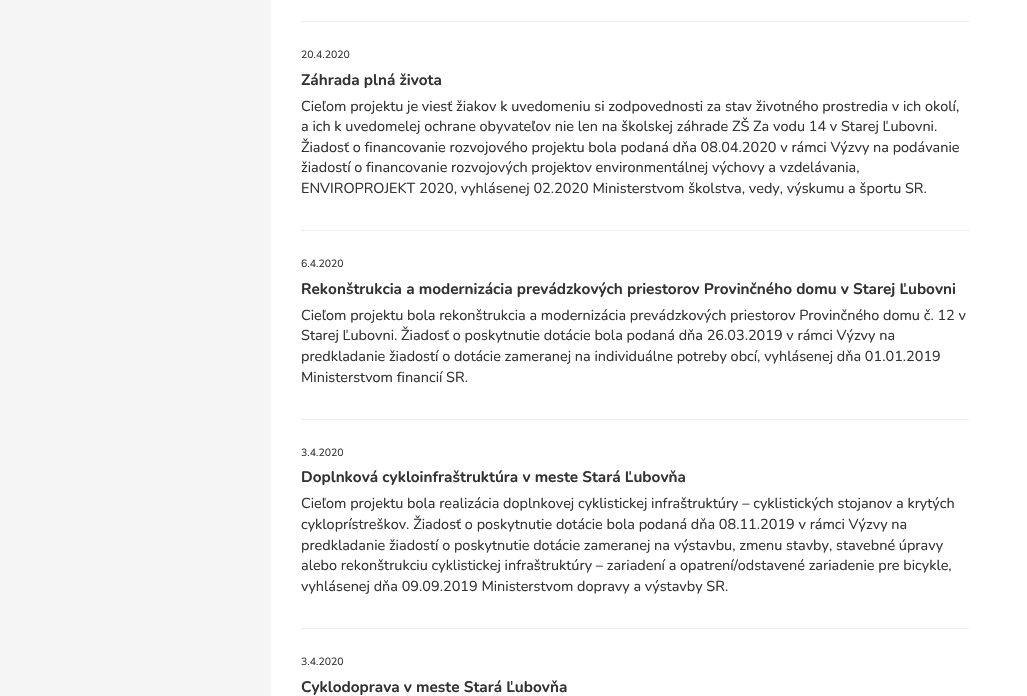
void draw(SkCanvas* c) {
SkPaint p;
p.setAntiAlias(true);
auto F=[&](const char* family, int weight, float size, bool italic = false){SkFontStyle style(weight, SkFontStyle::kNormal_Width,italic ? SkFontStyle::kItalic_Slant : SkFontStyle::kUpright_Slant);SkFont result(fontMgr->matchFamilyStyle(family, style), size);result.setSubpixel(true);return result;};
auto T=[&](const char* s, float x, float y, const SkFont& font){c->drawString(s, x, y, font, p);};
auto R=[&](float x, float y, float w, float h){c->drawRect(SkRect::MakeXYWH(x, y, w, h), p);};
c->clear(0xffffffff);
p.setColor(0xfff5f5f5);
R(0,0,271,696);
p.setColor(0xffeeeeee);
R(301,21,668,1);
auto f1 = F("Nunito",400,10.5);
p.setColor(0xff333333);
T("20.4.2020",301,58,f1);
auto f2 = F("Nunito",700,15.35);
T("Záhrada plná života",301,85,f2);
auto f3 = F("Nunito",400,14.45);
T("Cieľom projektu je viesť žiakov k uvedomeniu si zodpovednosti za stav životného prostredia v ich okolí,",301,111,f3);
T("a ich k uvedomelej ochrane obyvateľov nie len na školskej záhrade ZŠ Za vodu 14 v Starej Ľubovni.",301,131,f3);
T("Žiadosť o financovanie rozvojového projektu bola podaná dňa 08.04.2020 v rámci Výzvy na podávanie",301,152,f3);
T("žiadostí o financovanie rozvojových projektov environmentálnej výchovy a vzdelávania,",301,172,f3);
T("ENVIROPROJEKT 2020, vyhlásenej 02.2020 Ministerstvom školstva, vedy, výskumu a športu SR.",301,193,f3);
p.setColor(0xffeeeeee);
R(301,230,668,1);
p.setColor(0xff333333);
T("6.4.2020",301,267,f1);
T("Rekonštrukcia a modernizácia prevádzkových priestorov Provinčného domu v Starej Ľubovni",301,294,f2);
T("Cieľom projektu bola rekonštrukcia a modernizácia prevádzkových priestorov Provinčného domu č. 12 v",301,320,f3);
T("Starej Ľubovni. Žiadosť o poskytnutie dotácie bola podaná dňa 26.03.2019 v rámci Výzvy na",301,340,f3);
T("predkladanie žiadostí o dotácie zameranej na individuálne potreby obcí, vyhlásenej dňa 01.01.2019",301,361,f3);
T("Ministerstvom financií SR.",301,382,f3);
p.setColor(0xffeeeeee);
R(301,419,668,1);
p.setColor(0xff333333);
T("3.4.2020",301,456,f1);
T("Doplnková cykloinfraštruktúra v meste Stará Ľubovňa",301,482,f2);
T("Cieľom projektu bola realizácia doplnkovej cyklistickej infraštruktúry – cyklistických stojanov a krytých",301,508,f3);
T("cykloprístreškov. Žiadosť o poskytnutie dotácie bola podaná dňa 08.11.2019 v rámci Výzvy na",301,529,f3);
T("predkladanie žiadostí o poskytnutie dotácie zameranej na výstavbu, zmenu stavby, stavebné úpravy",301,550,f3);
T("alebo rekonštrukciu cyklistickej infraštruktúry – zariadení a opatrení/odstavené zariadenie pre bicykle,",301,570,f3);
T("vyhlásenej dňa 09.09.2019 Ministerstvom dopravy a výstavby SR.",301,591,f3);
p.setColor(0xffeeeeee);
R(301,628,668,1);
p.setColor(0xff333333);
T("3.4.2020",301,665,f1);
T("Cyklodoprava v meste Stará Ľubovňa",301,692,f2);
}
